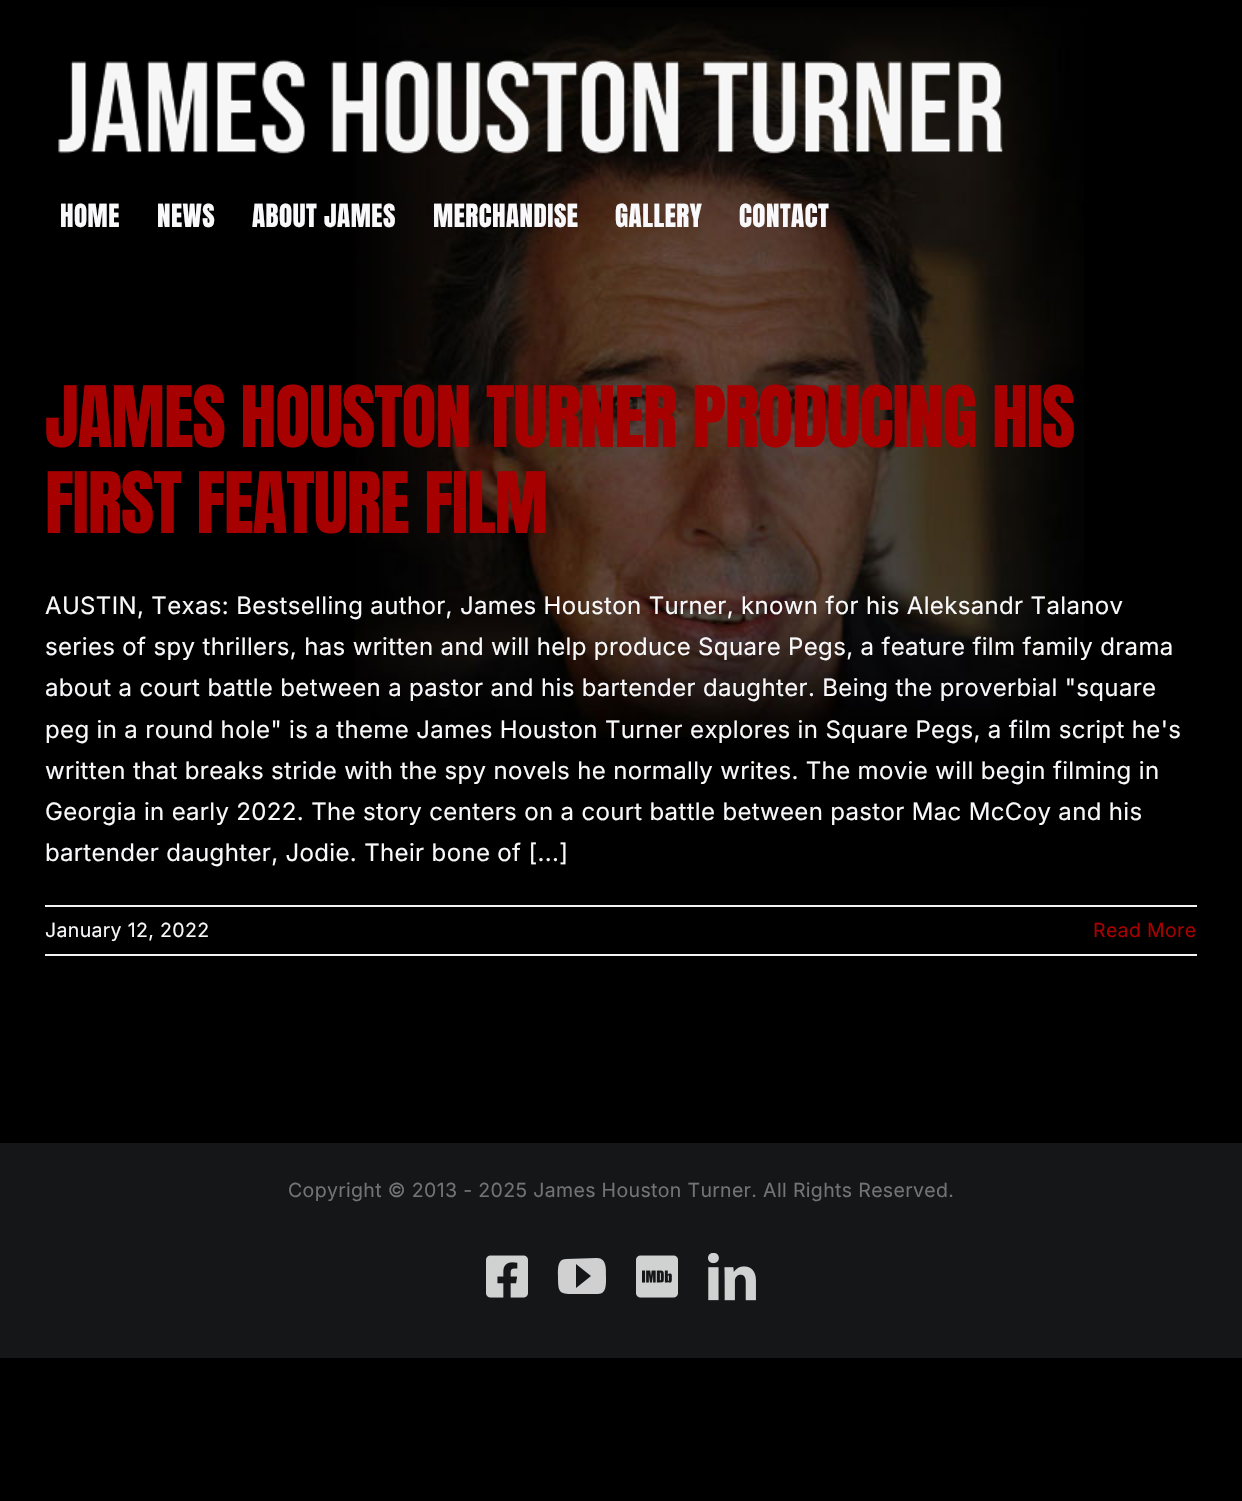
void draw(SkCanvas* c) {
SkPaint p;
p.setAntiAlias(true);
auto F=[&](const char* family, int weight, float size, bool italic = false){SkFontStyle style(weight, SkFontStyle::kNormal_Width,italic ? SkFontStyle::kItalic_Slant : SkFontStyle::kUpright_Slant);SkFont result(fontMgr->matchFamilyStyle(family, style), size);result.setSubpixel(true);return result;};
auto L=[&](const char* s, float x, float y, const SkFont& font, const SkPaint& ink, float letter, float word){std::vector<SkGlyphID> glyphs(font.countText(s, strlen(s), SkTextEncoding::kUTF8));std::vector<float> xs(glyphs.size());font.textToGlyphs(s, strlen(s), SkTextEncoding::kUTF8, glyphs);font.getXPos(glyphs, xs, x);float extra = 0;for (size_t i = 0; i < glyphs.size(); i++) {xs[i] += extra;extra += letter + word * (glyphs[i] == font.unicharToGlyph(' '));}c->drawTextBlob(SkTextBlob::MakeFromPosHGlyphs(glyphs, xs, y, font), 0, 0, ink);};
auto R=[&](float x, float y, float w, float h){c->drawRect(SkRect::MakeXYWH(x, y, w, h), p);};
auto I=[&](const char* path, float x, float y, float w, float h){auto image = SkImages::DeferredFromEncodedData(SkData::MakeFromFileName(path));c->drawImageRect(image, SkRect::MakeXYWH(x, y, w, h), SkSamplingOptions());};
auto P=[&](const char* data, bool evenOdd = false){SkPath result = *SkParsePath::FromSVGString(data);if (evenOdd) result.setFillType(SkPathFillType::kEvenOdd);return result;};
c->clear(0xff000000);
I("1.png",355,7,729,730);
I("2.png",58,59,946,95);
auto f1 = F("Anton",400,27);
p.setColor(0xfff9f9fb);
L("HOME",60,227,f1,p,.5,0);
L("NEWS",157,227,f1,p,.5,0);
L("ABOUT JAMES",252,227,f1,p,.5,0);
L("MERCHANDISE",433,227,f1,p,.5,0);
L("GALLERY",615,227,f1,p,.5,0);
L("CONTACT",739,227,f1,p,.5,0);
auto f2 = F("Anton",400,72);
p.setColor(0xffa70000);
L("JAMES HOUSTON TURNER PRODUCING HIS",45,447,f2,p,-1.1,0);
L("FIRST FEATURE FILM",45,533,f2,p,-1.1,0);
auto f3 = F("Inter",400,24);
p.setColor(0xfff9f9fb);
L("AUSTIN, Texas: Bestselling author, James Houston Turner, known for his Aleksandr Talanov",45,614,f3,p,.35,0);
L("series of spy thrillers, has written and will help produce Square Pegs, a feature film family drama",45,655,f3,p,.35,0);
L("about a court battle between a pastor and his bartender daughter. Being the proverbial \"square",45,696,f3,p,.35,0);
L("peg in a round hole\" is a theme James Houston Turner explores in Square Pegs, a film script he's",45,738,f3,p,.35,0);
L("written that breaks stride with the spy novels he normally writes. The movie will begin filming in",45,779,f3,p,.35,0);
L("Georgia in early 2022. The story centers on a court battle between pastor Mac McCoy and his",45,820,f3,p,.35,0);
L("bartender daughter, Jodie. Their bone of [...]",45,861,f3,p,.35,0);
p.setColor(0xfff2f3f5);
R(45,905,1152,2);
R(45,954,1152,2);
auto f4 = F("Inter",400,19.5);
p.setColor(0xfff9f9fb);
L("January 12, 2022",45,937,f4,p,.35,0);
p.setColor(0xffa70000);
L("Read More",1093,937,f4,p,.35,0);
p.setColor(0xff141617);
R(0,1143,1242,215);
p.setColor(0xff727374);
L("Copyright © 2013 - 2025 James Houston Turner. All Rights Reserved.",288,1197,f4,p,.35,0);
I("3.png",486,1255,42,43);
p.setColor(0xffd0d0d1);
c->drawPath(P("M597 1258l-31 1c-9 0-8 11-8 17c0 18 1 18 19 18h21c9 0 8-11 8-18c0-6 1-18-9-18zm-21 30v-24l15 12z"),p);
I("4.png",636,1255,42,43);
I("5.png",708,1253,48,48);
}
